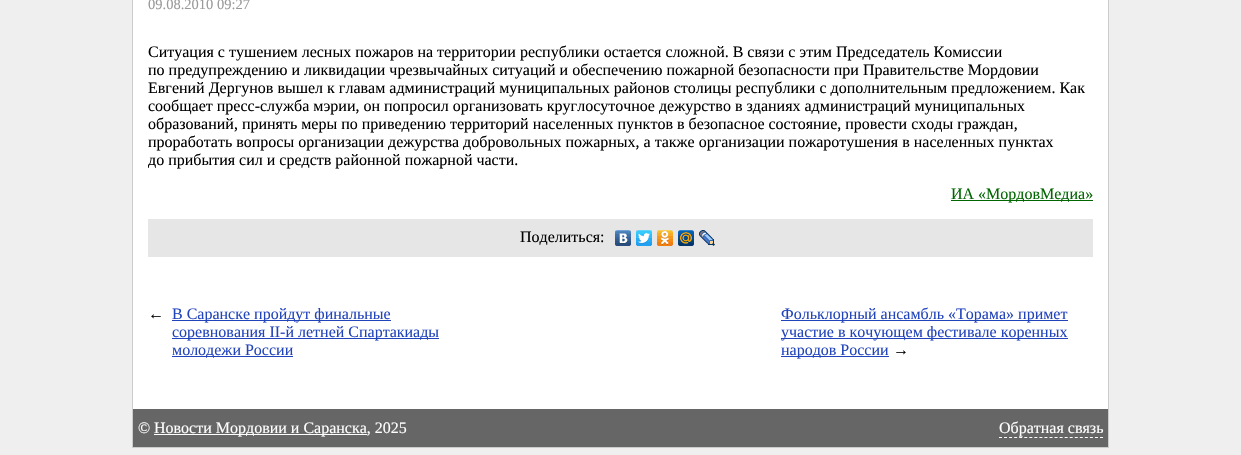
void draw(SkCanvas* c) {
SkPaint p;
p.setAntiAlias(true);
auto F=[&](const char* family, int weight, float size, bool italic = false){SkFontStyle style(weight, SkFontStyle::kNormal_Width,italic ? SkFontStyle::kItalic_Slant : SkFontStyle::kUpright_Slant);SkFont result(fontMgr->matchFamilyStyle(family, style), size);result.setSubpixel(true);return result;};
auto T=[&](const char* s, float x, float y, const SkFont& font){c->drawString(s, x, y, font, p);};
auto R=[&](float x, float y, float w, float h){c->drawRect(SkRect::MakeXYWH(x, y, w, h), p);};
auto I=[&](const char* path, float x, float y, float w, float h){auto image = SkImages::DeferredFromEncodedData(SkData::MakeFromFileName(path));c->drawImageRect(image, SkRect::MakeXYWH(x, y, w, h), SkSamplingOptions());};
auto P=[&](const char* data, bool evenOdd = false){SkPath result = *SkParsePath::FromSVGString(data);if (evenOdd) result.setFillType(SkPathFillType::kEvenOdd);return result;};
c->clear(0xffefefef);
p.setColor(0xffffffff);
R(133,0,975,409);
p.setColor(0xffcccccc);
R(1108,0,1,448);
R(132,447,977,1);
R(132,0,1,448);
auto f1 = F("Liberation Serif",400,14.5);
p.setColor(0xff999999);
T("09.08.2010 09:27",148,9,f1);
auto f2 = F("Liberation Serif",400,16);
p.setColor(0xff000000);
T("Ситуация с тушением лесных пожаров на территории республики остается сложной. В связи с этим Председатель Комиссии",148,57,f2);
T("по предупреждению и ликвидации чрезвычайных ситуаций и обеспечению пожарной безопасности при Правительстве Мордовии",148,75,f2);
T("Евгений Дергунов вышел к главам администраций муниципальных районов столицы республики с дополнительным предложением. Как",148,93,f2);
T("сообщает пресс-служба мэрии, он попросил организовать круглосуточное дежурство в зданиях администраций муниципальных",148,111,f2);
T("образований, принять меры по приведению территорий населенных пунктов в безопасное состояние, провести сходы граждан,",148,129,f2);
T("проработать вопросы организации дежурства добровольных пожарных, а также организации пожаротушения в населенных пунктах",148,147,f2);
T("до прибытия сил и средств районной пожарной части.",148,165,f2);
p.setColor(0xff006600);
R(951,200,142,1);
T("ИА «МордовМедиа»",951,199,f2);
p.setColor(0xffe6e6e6);
R(148,219,945,38);
p.setColor(0xff000000);
T("Поделиться:",520,242,f2);
I("1.png",615,230,16,16);
I("2.png",636,230,16,16);
I("3.png",657,230,16,16);
I("4.png",678,230,16,16);
I("5.png",699,230,16,16);
T("←",148,319,f2);
p.setColor(0xff2244bb);
R(172,320,219,1);
T("В Саранске пройдут финальные",172,319,f2);
R(172,338,267,1);
T("соревнования II-й летней Спартакиады",172,337,f2);
R(172,356,121,1);
T("молодежи России",172,355,f2);
R(781,320,287,1);
T("Фольклорный ансамбль «Торама» примет",781,319,f2);
R(781,338,287,1);
T("участие в кочующем фестивале коренных",781,337,f2);
R(781,356,108,1);
T("народов России",781,355,f2);
p.setColor(0xff000000);
T("→",893,355,f2);
p.setColor(0xff666666);
R(133,409,975,38);
p.setColor(0xffffffff);
T("©",138,433,f2);
R(154,434,213,1);
T("Новости Мордовии и Саранска, 2025",154,433,f2);
p.setStroke(true);
p.setStrokeWidth(1);
p.setPathEffect(SkDashPathEffect::Make({{3,2.05f}}, 0));
c->drawPath(P("M999 437.5h104"),p);
p.setPathEffect(nullptr);
p.setStroke(false);
T("Обратная связь",999,433,f2);
}
